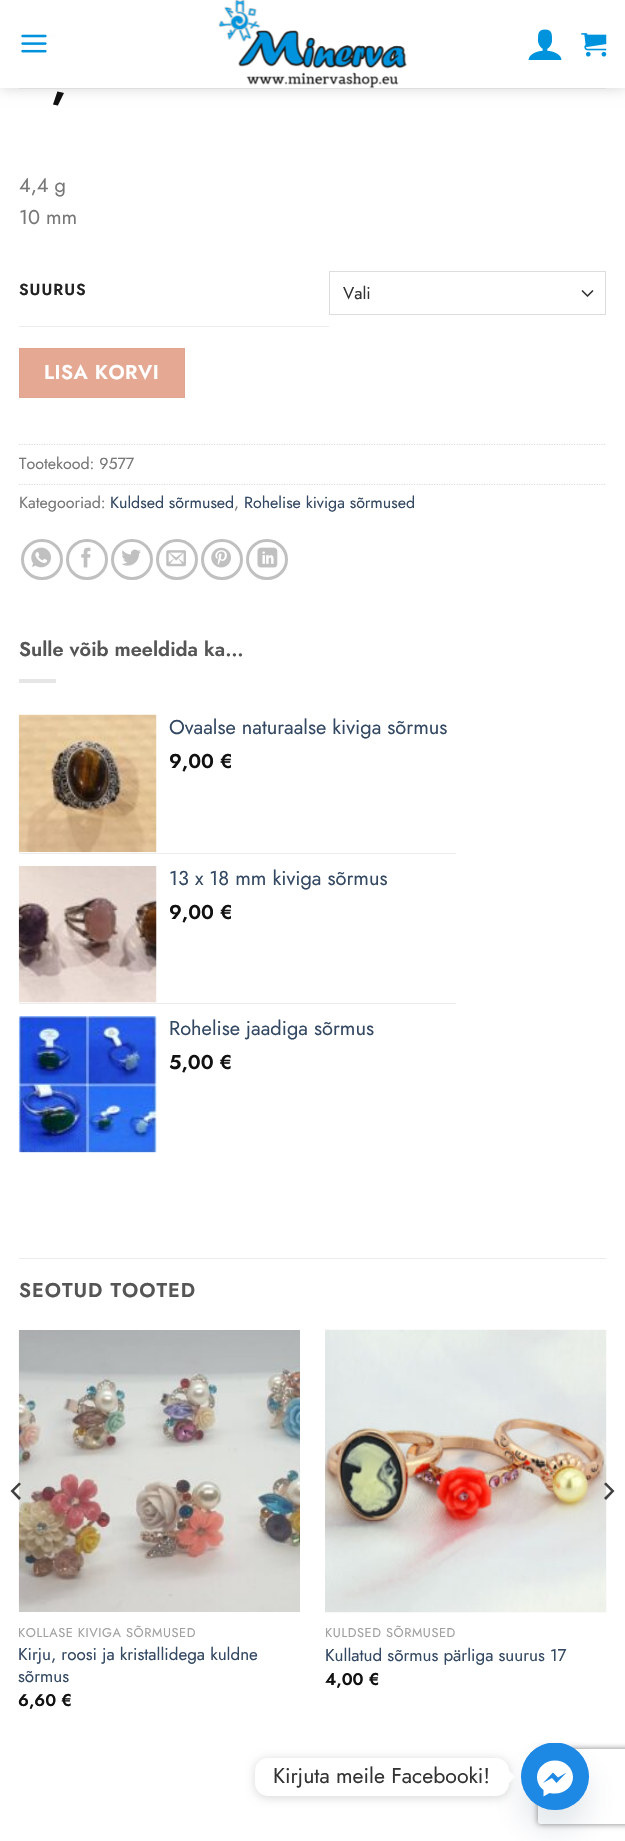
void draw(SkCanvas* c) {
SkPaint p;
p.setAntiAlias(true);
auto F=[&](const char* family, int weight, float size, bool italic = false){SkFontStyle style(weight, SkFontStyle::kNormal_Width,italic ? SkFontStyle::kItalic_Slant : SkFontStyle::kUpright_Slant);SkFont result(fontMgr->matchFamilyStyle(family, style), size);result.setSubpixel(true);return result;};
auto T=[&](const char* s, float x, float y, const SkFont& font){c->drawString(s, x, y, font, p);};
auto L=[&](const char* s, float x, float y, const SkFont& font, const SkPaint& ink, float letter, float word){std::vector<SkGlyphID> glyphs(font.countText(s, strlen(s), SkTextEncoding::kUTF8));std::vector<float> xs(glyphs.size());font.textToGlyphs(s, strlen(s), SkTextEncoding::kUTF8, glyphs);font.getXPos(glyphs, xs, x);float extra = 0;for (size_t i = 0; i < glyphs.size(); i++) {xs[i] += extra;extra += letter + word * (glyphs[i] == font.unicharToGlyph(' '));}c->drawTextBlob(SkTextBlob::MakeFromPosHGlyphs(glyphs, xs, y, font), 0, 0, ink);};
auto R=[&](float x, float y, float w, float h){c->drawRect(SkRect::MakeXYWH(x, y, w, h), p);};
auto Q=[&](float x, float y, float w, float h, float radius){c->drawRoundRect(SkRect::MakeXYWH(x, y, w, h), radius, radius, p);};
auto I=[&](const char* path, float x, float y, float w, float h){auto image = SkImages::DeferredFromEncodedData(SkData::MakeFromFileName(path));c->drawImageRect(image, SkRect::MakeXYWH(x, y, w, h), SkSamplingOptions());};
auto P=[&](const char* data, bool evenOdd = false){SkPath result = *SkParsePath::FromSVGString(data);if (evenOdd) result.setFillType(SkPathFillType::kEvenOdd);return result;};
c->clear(0xffffffff);
p.setColor(0xffe6e6e6);
R(19,34,37,4);
c->save();
c->clipPath(P("M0 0h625v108h-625zm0 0h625v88h-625z",true),true);
p.setColor(0x26000000);
p.setMaskFilter(SkMaskFilter::MakeBlur(kNormal_SkBlurStyle, 6));
c->drawRect(SkRect::MakeXYWH(1,1,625,88),p);
p.setMaskFilter(nullptr);
c->restore();
p.setColor(0xe6ffffff);
R(0,34,625,54);
I("1.png",21,34,26,19);
I("2.png",218,0,189,88);
I("3.png",528,29,34,31);
I("4.png",581,33,26,24);
p.setColor(0x1a777777);
R(19,88,587,1);
auto f1 = F("Jost",600,50);
p.setColor(0xff111111);
T(",",51,97,f1);
auto f2 = F("Jost",400,20);
p.setColor(0xff777777);
T("4,4 g",19,192,f2);
T("10 mm",19,224,f2);
p.setColor(0xffececec);
R(19,326,310,1);
auto f3 = F("Jost",600,16);
p.setColor(0xff222222);
L("SUURUS",19,295,f3,p,1,0);
p.setStroke(true);
p.setStrokeWidth(1.7);
p.setStrokeCap(SkPaint::kRound_Cap);
p.setStrokeJoin(SkPaint::kRound_Join);
p.setColor(0xff333333);
c->drawPath(P("M582.5 291l5 5l5-5"),p);
p.setStrokeWidth(1);
p.setStrokeCap(SkPaint::kButt_Cap);
p.setStrokeJoin(SkPaint::kMiter_Join);
p.setColor(0xffdddddd);
c->drawRect(SkRect::MakeXYWH(329.5,271.5,276,43),p);
auto f4 = F("Jost",400,17);
p.setStroke(false);
p.setColor(0xff333333);
T("Vali",343,299,f4);
p.setColor(0xffe4a893);
c->drawRect(SkRect::MakeXYWH(19.5,348.5,165,49),p);
p.setStroke(true);
p.setColor(0xffdea591);
c->drawRect(SkRect::MakeXYWH(19.5,348.5,165,49),p);
auto f5 = F("Jost",600,20);
p.setStroke(false);
p.setColor(0xffffffff);
L("LISA KORVI",44,379,f5,p,.5,0);
p.setStroke(true);
p.setStrokeWidth(1.2);
p.setColor(0xffdddddd);
p.setPathEffect(SkDashPathEffect::Make({{1.25f,1.25f}}, 0));
c->drawPath(P("M19 444.5h587"),p);
p.setPathEffect(nullptr);
auto f6 = F("Jost",400,16);
p.setStroke(false);
p.setColor(0xff777777);
T("Tootekood: 9577",19,469,f6);
p.setStroke(true);
p.setColor(0xffdddddd);
p.setPathEffect(SkDashPathEffect::Make({{1.25f,1.25f}}, 0));
c->drawPath(P("M19 484.5h587"),p);
p.setPathEffect(nullptr);
p.setStroke(false);
p.setColor(0xff777777);
T("Kategooriad:",19,508,f6);
p.setColor(0xff334862);
T("Kuldsed sõrmused",110,508,f6);
p.setColor(0xff777777);
T(",",234,508,f6);
p.setColor(0xff334862);
T("Rohelise kiviga sõrmused",244,508,f6);
p.setStroke(true);
p.setStrokeWidth(3);
p.setColor(0xffc0c0c0);
c->drawRoundRect(SkRect::MakeXYWH(22.5,540.5,39,38),19,19,p);
I("5.png",31,547,20,21);
c->drawRoundRect(SkRect::MakeXYWH(67.5,540.5,39,38),19,19,p);
I("6.png",81,547,10,21);
c->drawRoundRect(SkRect::MakeXYWH(112.5,540.5,39,38),19,19,p);
I("7.png",121,549,20,17);
c->drawRoundRect(SkRect::MakeXYWH(157.5,540.5,39,38),19,19,p);
I("8.png",166,550,20,17);
c->drawRoundRect(SkRect::MakeXYWH(202.5,540.5,39,38),19,19,p);
I("9.png",211,547,20,21);
c->drawRoundRect(SkRect::MakeXYWH(247.5,540.5,39,38),19,19,p);
I("10.png",257,547,21,21);
p.setStroke(false);
p.setColor(0xff555555);
T("Sulle võib meeldida ka…",19,656,f5);
p.setColor(0xffe6e6e6);
R(19,679,37,4);
I("11.png",18,714,139,139);
p.setColor(0xff334862);
T("Ovaalse naturaalse kiviga sõrmus",169,734,f2);
p.setColor(0xff111111);
T("9,00 €",169,768,f5);
p.setColor(0xffececec);
R(19,853,437,1);
I("12.png",18,866,139,137);
p.setColor(0xff334862);
T("13 x 18 mm kiviga sõrmus",169,885,f2);
p.setColor(0xff111111);
T("9,00 €",169,919,f5);
p.setColor(0xffececec);
R(19,1003,437,1);
I("13.png",18,1016,139,137);
p.setColor(0xff334862);
T("Rohelise jaadiga sõrmus",169,1035,f2);
p.setColor(0xff111111);
T("5,00 €",169,1069,f5);
p.setColor(0xffececec);
R(19,1258,587,1);
p.setColor(0xff555555);
L("SEOTUD TOOTED",19,1297,f5,p,1,0);
I("14.png",18,1330,282,282);
p.setColor(0xcc111111);
c->drawPath(P("M10.5 1491l8.5 9l2-2l-7-7l7-7l-2-1.5z"),p);
I("15.png",325,1329,282,284);
c->drawPath(P("M614.5 1491l-8.5-8.5l-2 1.5l7 7l-7 7l2 2z"),p);
auto f7 = F("Jost",400,12.75);
p.setColor(0xffa0a0a0);
L("KOLLASE KIVIGA SÕRMUSED",18,1637,f7,p,.6,0);
p.setColor(0xff334862);
T("Kirju, roosi ja kristallidega kuldne",18,1660,f4);
T("sõrmus",18,1682,f4);
auto f8 = F("Jost",600,17);
p.setColor(0xff111111);
T("6,60 €",18,1706,f8);
p.setColor(0xffa0a0a0);
L("KULDSED SÕRMUSED",325,1637,f7,p,.6,0);
p.setColor(0xff334862);
T("Kullatud sõrmus pärliga suurus 17",325,1661,f4);
p.setColor(0xff111111);
T("4,00 €",325,1685,f8);
p.setColor(0x2949687e);
p.setMaskFilter(SkMaskFilter::MakeBlur(kNormal_SkBlurStyle, 15));
c->drawRoundRect(SkRect::MakeXYWH(521,1763,68,67),33.5,33.5,p);
p.setMaskFilter(nullptr);
c->save();
c->clipPath(P("M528 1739h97v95h-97zm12.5 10h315c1.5 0 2.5 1 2.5 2.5v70c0 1.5-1 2.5-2.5 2.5h-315c-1.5 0-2.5-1-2.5-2.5v-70c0-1.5 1-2.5 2.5-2.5z",true),true);
p.setColor(0xff808080);
p.setMaskFilter(SkMaskFilter::MakeBlur(kNormal_SkBlurStyle, 3));
c->drawRoundRect(SkRect::MakeXYWH(538,1749,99,75),2.5,2.5,p);
p.setMaskFilter(nullptr);
c->restore();
p.setColor(0xff1e88e5);
Q(521,1743,68,67,33.5);
c->save();
c->clipRect(SkRect::MakeXYWH(521,1743,68,67));
c->drawCircle(555,1776,33.5,p);
c->restore();
p.setColor(0x26000000);
p.setMaskFilter(SkMaskFilter::MakeBlur(kNormal_SkBlurStyle, 5));
c->drawRoundRect(SkRect::MakeXYWH(255,1759,254,39),13,13,p);
p.setMaskFilter(nullptr);
p.setColor(0xffffffff);
Q(255,1758,254,38,13);
auto f9 = F("Jost",400,21.25);
p.setColor(0xff333333);
T("Kirjuta meile Facebooki!",273,1783,f9);
p.setColor(0xffffffff);
c->drawPath(P("M509 1783v-12.5l6 6.5z"),p);
c->drawPath(P("M537 1777c0-9 8-16.5 18-16.5c10 0 18 7.5 18 16.5c0 9.5-8 16.5-18 16.5c-2 0-3.5 0-5.5-.5l-6 3.5v-6.5c-4-3-6.5-8-6.5-13zm15 1l4.5 5l10-10.5l-8.5 5l-5-5l-10 10.5z",true),p);
}
